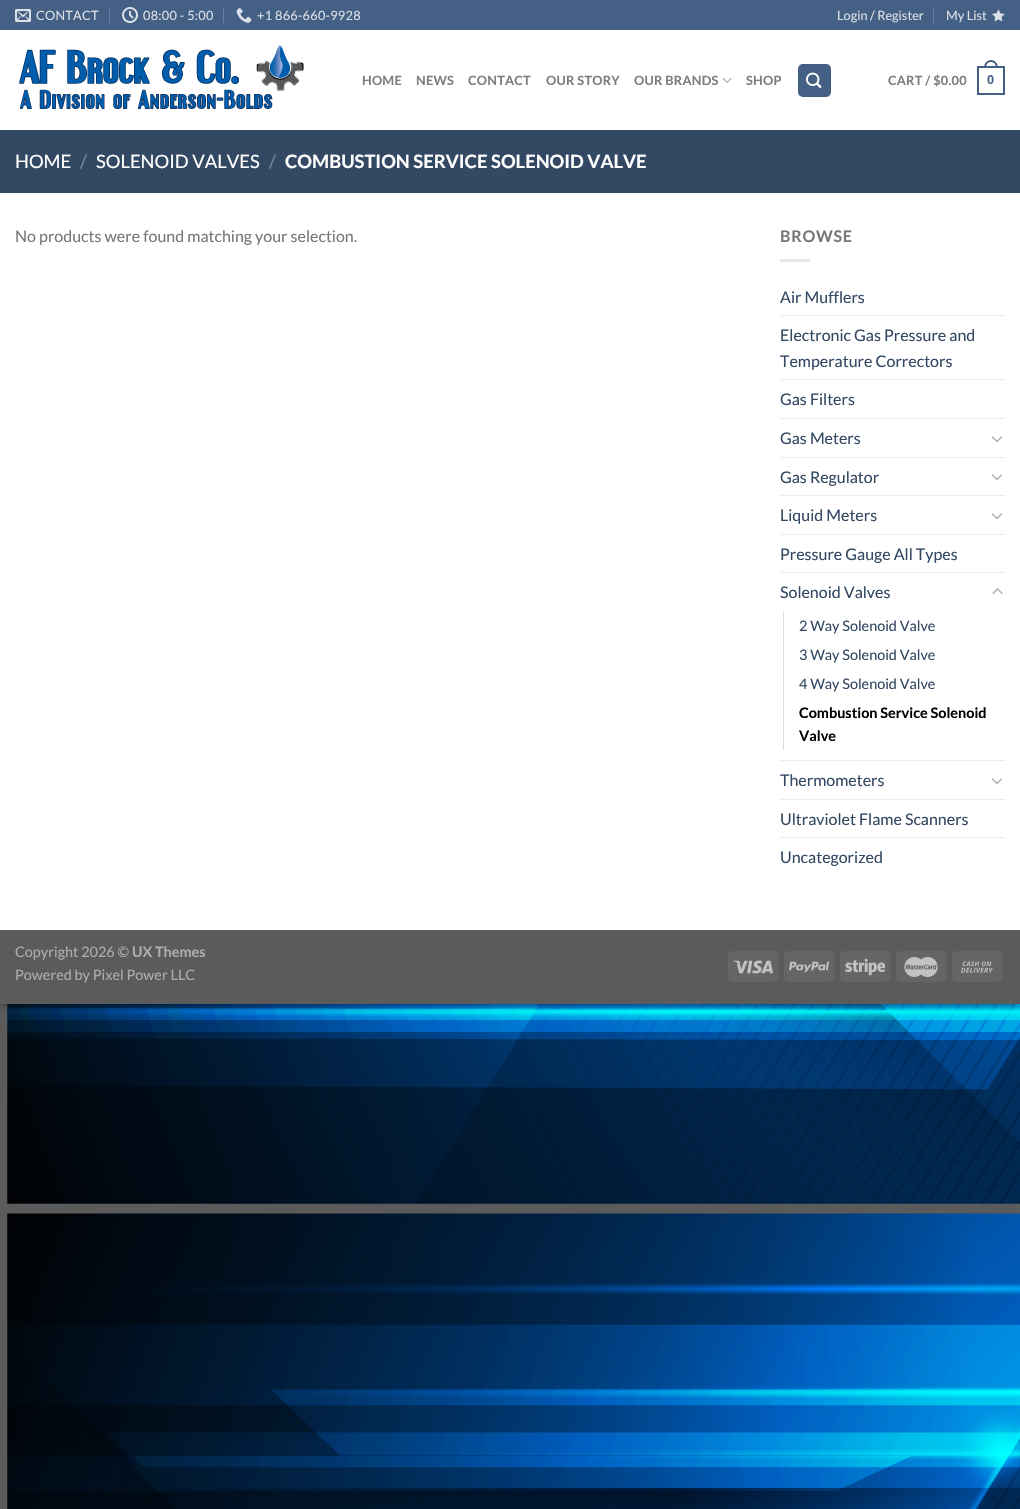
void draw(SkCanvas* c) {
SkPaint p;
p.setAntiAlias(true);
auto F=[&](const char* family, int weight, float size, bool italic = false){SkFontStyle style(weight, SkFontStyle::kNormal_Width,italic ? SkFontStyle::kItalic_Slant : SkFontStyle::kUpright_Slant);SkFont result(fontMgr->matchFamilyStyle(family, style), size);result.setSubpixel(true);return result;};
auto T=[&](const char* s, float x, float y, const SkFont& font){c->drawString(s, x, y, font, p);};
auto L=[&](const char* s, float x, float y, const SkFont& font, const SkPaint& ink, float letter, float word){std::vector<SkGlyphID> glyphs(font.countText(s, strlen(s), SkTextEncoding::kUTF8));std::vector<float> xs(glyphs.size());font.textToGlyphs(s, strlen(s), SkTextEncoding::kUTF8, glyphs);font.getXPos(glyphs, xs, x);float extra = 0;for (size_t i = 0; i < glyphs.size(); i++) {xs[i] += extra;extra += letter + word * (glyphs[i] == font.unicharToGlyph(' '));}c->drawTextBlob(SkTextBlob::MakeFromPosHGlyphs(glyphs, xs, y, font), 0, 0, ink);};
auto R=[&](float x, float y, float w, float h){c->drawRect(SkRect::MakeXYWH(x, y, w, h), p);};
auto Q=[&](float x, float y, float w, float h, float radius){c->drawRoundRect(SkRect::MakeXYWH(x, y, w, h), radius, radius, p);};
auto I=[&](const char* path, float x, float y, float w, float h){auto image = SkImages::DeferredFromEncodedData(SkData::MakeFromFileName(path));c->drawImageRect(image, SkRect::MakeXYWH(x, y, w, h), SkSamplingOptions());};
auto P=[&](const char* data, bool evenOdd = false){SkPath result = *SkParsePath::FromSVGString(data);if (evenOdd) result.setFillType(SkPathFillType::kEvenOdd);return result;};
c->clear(0xff5b5b5b);
I("1.png",7,1004,1013,505);
p.setColor(0x3b000000);
p.setMaskFilter(SkMaskFilter::MakeBlur(kNormal_SkBlurStyle, 3));
c->drawRect(SkRect::MakeXYWH(0,3,1020,1004),p);
p.setMaskFilter(nullptr);
p.setColor(0x29000000);
p.setMaskFilter(SkMaskFilter::MakeBlur(kNormal_SkBlurStyle, 3));
c->drawRect(SkRect::MakeXYWH(4,7,1012,996),p);
p.setMaskFilter(nullptr);
p.setColor(0xffffffff);
R(0,30,1020,900);
p.setColor(0xff446084);
R(0,0,1020,30);
I("2.png",15,9,16,13);
auto f1 = F("Lato",400,12.75);
p.setColor(0xffdadfe6);
L("CONTACT",36,20,f1,p,.25,0);
p.setColor(0xff69809d);
R(109,8,1,15);
I("3.png",122,7,16,16);
p.setColor(0xffdadfe6);
L("08:00 - 5:00",143,20,f1,p,.25,0);
p.setColor(0xff69809d);
R(223,8,1,15);
I("4.png",236,8,16,15);
p.setColor(0xffdadfe6);
L("+1 866-660-9928",257,20,f1,p,.25,0);
T("Login / Register",837,20,f1);
p.setColor(0xff69809d);
R(933,8,1,15);
p.setColor(0xffdadfe6);
T("My List",946,20,f1);
I("5.png",992,9,13,13);
I("6.png",19,45,285,64);
auto f2 = F("Lato",700,12.75);
p.setColor(0xff7d7d7d);
L("HOME",362,85,f2,p,.25,0);
L("NEWS",416,85,f2,p,.25,0);
L("CONTACT",468,85,f2,p,.25,0);
L("OUR STORY",546,85,f2,p,.25,0);
L("OUR BRANDS",634,85,f2,p,.25,0);
I("7.png",722,77,10,6);
L("SHOP",746,85,f2,p,.25,0);
p.setColor(0xff446084);
Q(798,64,33,33,5);
p.setStroke(true);
p.setStrokeWidth(1);
p.setColor(0x0d000000);
c->drawRect(SkRect::MakeXYWH(798.5,64.5,32,32),p);
I("8.png",806,72,16,16);
p.setStroke(false);
p.setColor(0xff7d7d7d);
L("CART / $0.00",888,85,f2,p,.25,0);
p.setStroke(true);
p.setStrokeWidth(2);
p.setColor(0xff446084);
c->drawRect(SkRect::MakeXYWH(978,67,26,27),p);
p.setStroke(false);
c->drawPath(P("M991 60c4.5 0 7 4 7 8h-14c0-4 2.5-8 7-8zm0 2c3.5 0 5 3 5 6h-10c0-3 1.5-6 5-6z",true),p);
auto f3 = F("Liberation Sans",700,12.75);
L("0",987,84,f3,p,.25,0);
p.setColor(0xff334863);
R(0,130,1020,63);
p.setColor(0xff3a4d65);
R(15,130,990,1);
auto f4 = F("Lato",400,18.4);
p.setColor(0xffffffff);
T("HOME",15,168,f4);
p.setColor(0xff7a889a);
T("/",80,168,f4);
p.setColor(0xffffffff);
T("SOLENOID VALVES",96,168,f4);
p.setColor(0xff7a889a);
T("/",269,168,f4);
auto f5 = F("Lato",700,18.4);
p.setColor(0xffffffff);
T("COMBUSTION SERVICE SOLENOID VALVE",285,168,f5);
auto f6 = F("Lato",400,16);
p.setColor(0xff777777);
T("No products were found matching your selection.",15,242,f6);
auto f7 = F("Lato",700,16);
L("BROWSE",780,242,f7,p,.75,0);
p.setColor(0xffe6e6e6);
R(780,259,30,3);
p.setColor(0xff334862);
T("Air Mufflers",780,303,f6);
p.setColor(0xffececec);
R(780,315,225,1);
p.setColor(0xff334862);
T("Electronic Gas Pressure and",780,341,f6);
T("Temperature Correctors",780,367,f6);
p.setColor(0xffececec);
R(780,379,225,1);
p.setColor(0xff334862);
T("Gas Filters",780,405,f6);
p.setColor(0xffececec);
R(780,418,225,1);
p.setColor(0xff334862);
T("Gas Meters",780,444,f6);
I("9.png",991,436,12,7);
p.setColor(0xffececec);
R(780,457,225,1);
p.setColor(0xff334862);
T("Gas Regulator",780,483,f6);
I("9.png",991,474,12,7);
p.setColor(0xffececec);
R(780,495,225,1);
p.setColor(0xff334862);
T("Liquid Meters",780,521,f6);
I("9.png",991,513,12,7);
p.setColor(0xffececec);
R(780,534,225,1);
p.setColor(0xff334862);
T("Pressure Gauge All Types",780,560,f6);
p.setColor(0xffececec);
R(780,572,225,1);
p.setColor(0xff334862);
T("Solenoid Valves",780,598,f6);
I("10.png",992,588,11,6);
p.setColor(0xffdddddd);
R(783,611,1,139);
auto f8 = F("Lato",400,14.4);
p.setColor(0xff334862);
T("2 Way Solenoid Valve",799,631,f8);
T("3 Way Solenoid Valve",799,660,f8);
T("4 Way Solenoid Valve",799,689,f8);
auto f9 = F("Lato",700,14.4);
p.setColor(0xff000000);
T("Combustion Service Solenoid",799,718,f9);
T("Valve",799,741,f9);
p.setColor(0xffececec);
R(780,760,225,1);
p.setColor(0xff334862);
T("Thermometers",780,786,f6);
I("9.png",991,778,12,7);
p.setColor(0xffececec);
R(780,799,225,1);
p.setColor(0xff334862);
T("Ultraviolet Flame Scanners",780,825,f6);
p.setColor(0xffececec);
R(780,837,225,1);
p.setColor(0xff334862);
T("Uncategorized",780,863,f6);
p.setColor(0xff5b5b5b);
R(0,930,1020,74);
p.setColor(0xffadadad);
T("Copyright 2026 ©",15,957,f8);
T("UX Themes",132,957,f9);
T("Powered by Pixel Power LLC",15,980,f8);
p.setColor(0xff656565);
Q(728,951,50,31,5);
I("11.png",733,960,40,14);
Q(784,951,50,31,5);
I("12.png",789,961,40,12);
Q(840,951,50,31,5);
I("13.png",845,958,40,18);
Q(896,951,50,31,5);
I("14.png",904,957,34,20);
Q(952,951,50,31,5);
I("15.png",961,961,32,12);
}
